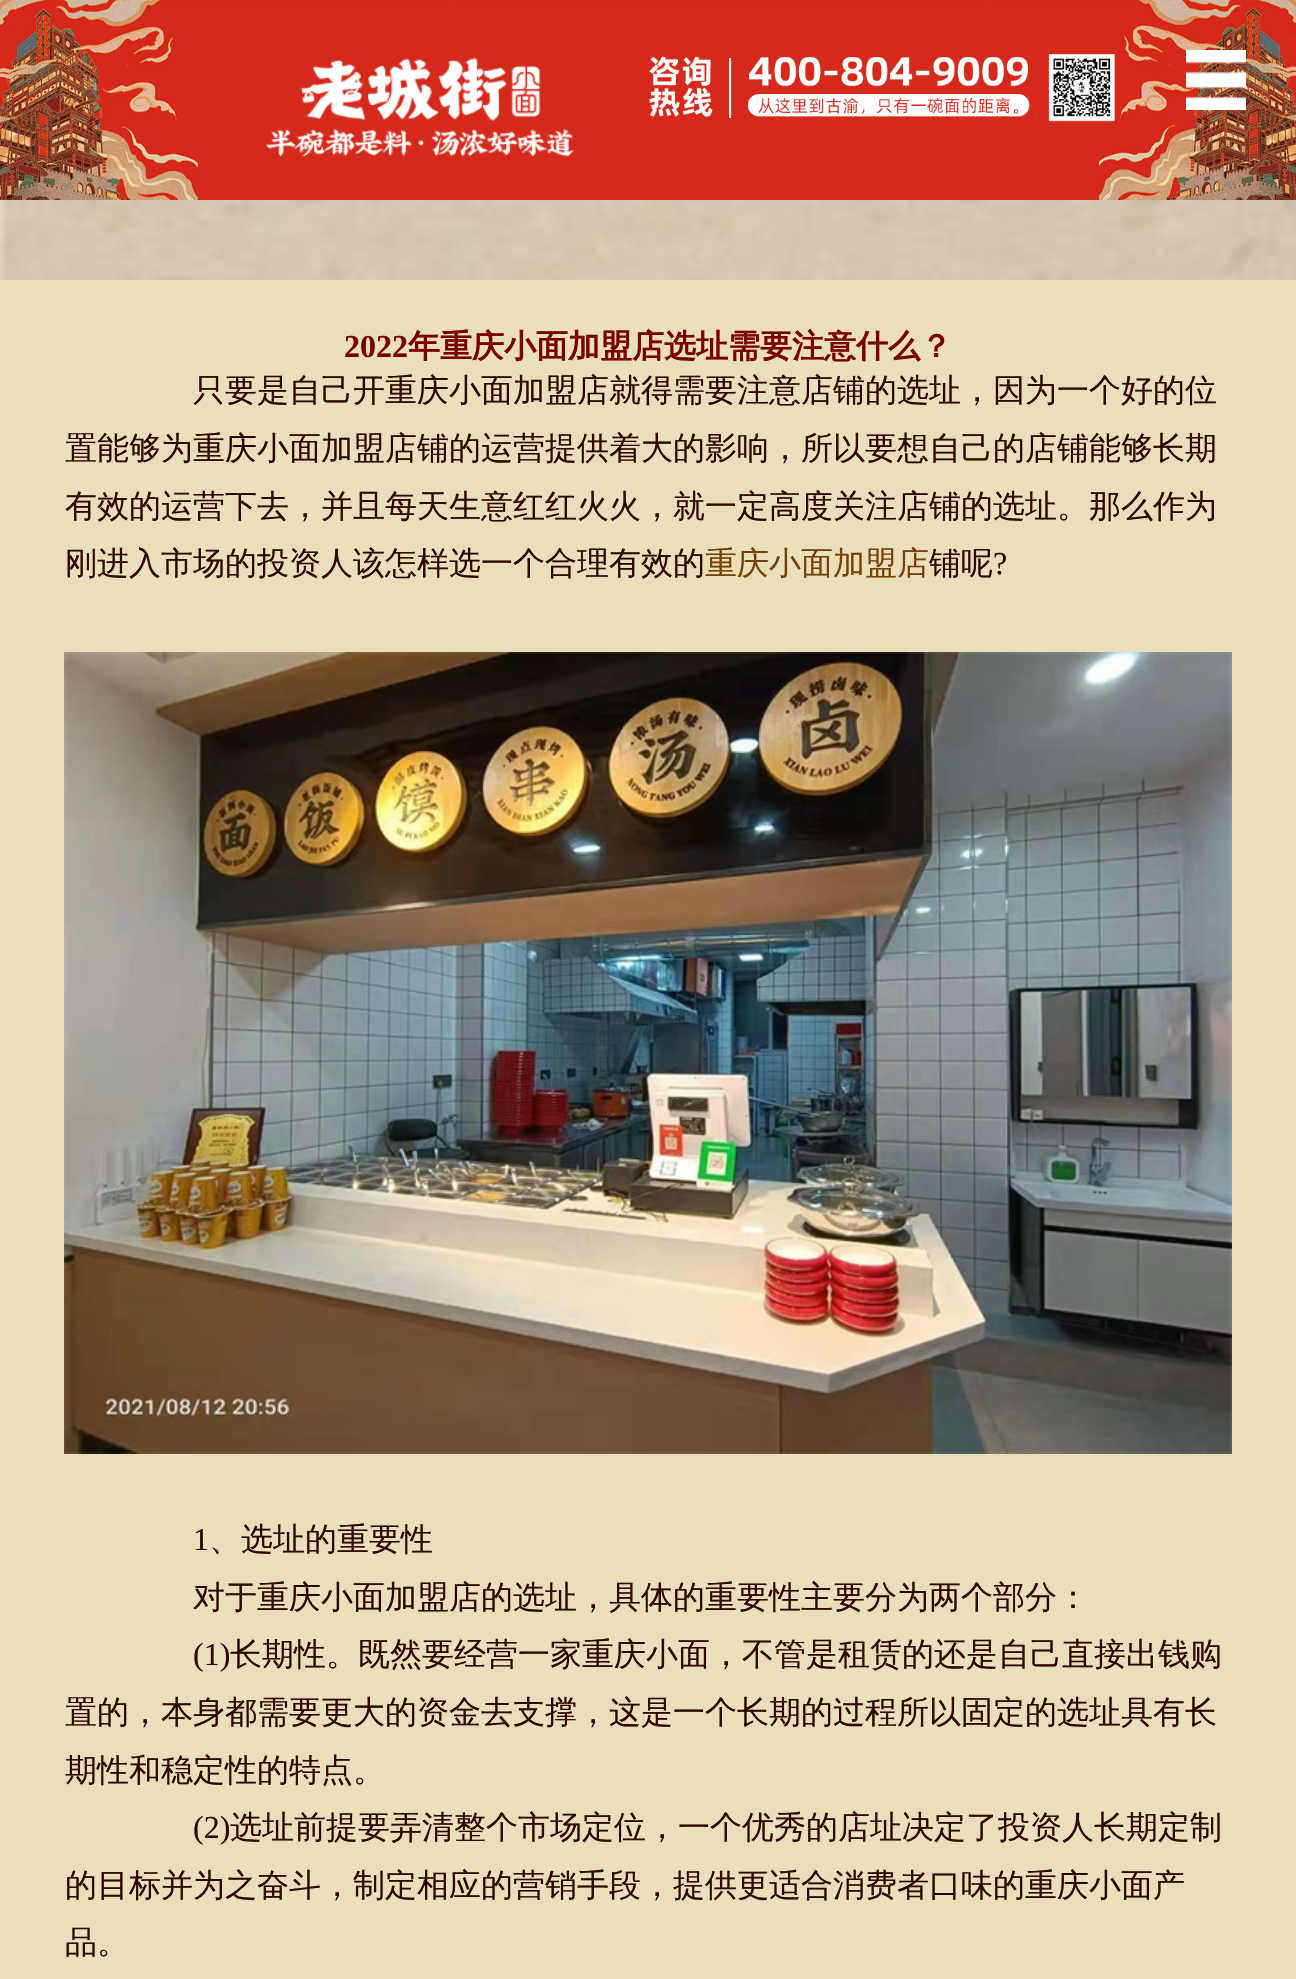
void draw(SkCanvas* c) {
SkPaint p;
p.setAntiAlias(true);
auto F=[&](const char* family, int weight, float size, bool italic = false){SkFontStyle style(weight, SkFontStyle::kNormal_Width,italic ? SkFontStyle::kItalic_Slant : SkFontStyle::kUpright_Slant);SkFont result(fontMgr->matchFamilyStyle(family, style), size);result.setSubpixel(true);return result;};
auto T=[&](const char* s, float x, float y, const SkFont& font){c->drawString(s, x, y, font, p);};
auto R=[&](float x, float y, float w, float h){c->drawRect(SkRect::MakeXYWH(x, y, w, h), p);};
auto I=[&](const char* path, float x, float y, float w, float h){auto image = SkImages::DeferredFromEncodedData(SkData::MakeFromFileName(path));c->drawImageRect(image, SkRect::MakeXYWH(x, y, w, h), SkSamplingOptions());};
c->clear(0xffffffff);
I("1.png",0,0,1296,200);
I("2.png",266,58,308,99);
I("3.png",649,54,466,68);
I("4.png",1186,50,60,60);
I("5.png",0,200,1296,80);
p.setColor(0xffeadfbb);
R(0,280,1296,1699);
auto f1 = F("Liberation Serif",700,32);
p.setColor(0xff7a0000);
T("2022",344,357,f1);
auto f2 = F("WenQuanYi Zen Hei",700,32);
T("年重庆小面加盟店选址需要注意什么？",408,357,f2);
auto f3 = F("WenQuanYi Zen Hei",500,32);
p.setColor(0xff2f0600);
T("只要是自己开重庆小面加盟店就得需要注意店铺的选址，因为一个好的位",193,401,f3);
T("置能够为重庆小面加盟店铺的运营提供着大的影响，所以要想自己的店铺能够长期",65,459,f3);
T("有效的运营下去，并且每天生意红红火火，就一定高度关注店铺的选址。那么作为",65,517,f3);
T("刚进入市场的投资人该怎样选一个合理有效的",65,574,f3);
p.setColor(0xff774106);
T("重庆小面加盟店",705,574,f3);
p.setColor(0xff2f0600);
T("铺呢",929,574,f3);
auto f4 = F("Liberation Serif",400,32);
T("?",993,574,f4);
I("6.png",64,652,1168,802);
T("1",193,1550,f4);
T("、选址的重要性",209,1550,f3);
T("对于重庆小面加盟店的选址，具体的重要性主要分为两个部分：",193,1608,f3);
T("(1)",193,1665,f4);
T("长期性。既然要经营一家重庆小面，不管是租赁的还是自己直接出钱购",230,1665,f3);
T("置的，本身都需要更大的资金去支撑，这是一个长期的过程所以固定的选址具有长",65,1723,f3);
T("期性和稳定性的特点。",65,1781,f3);
T("(2)",193,1838,f4);
T("选址前提要弄清整个市场定位，一个优秀的店址决定了投资人长期定制",230,1838,f3);
T("的目标并为之奋斗，制定相应的营销手段，提供更适合消费者口味的重庆小面产",65,1896,f3);
T("品。",65,1953,f3);
}
